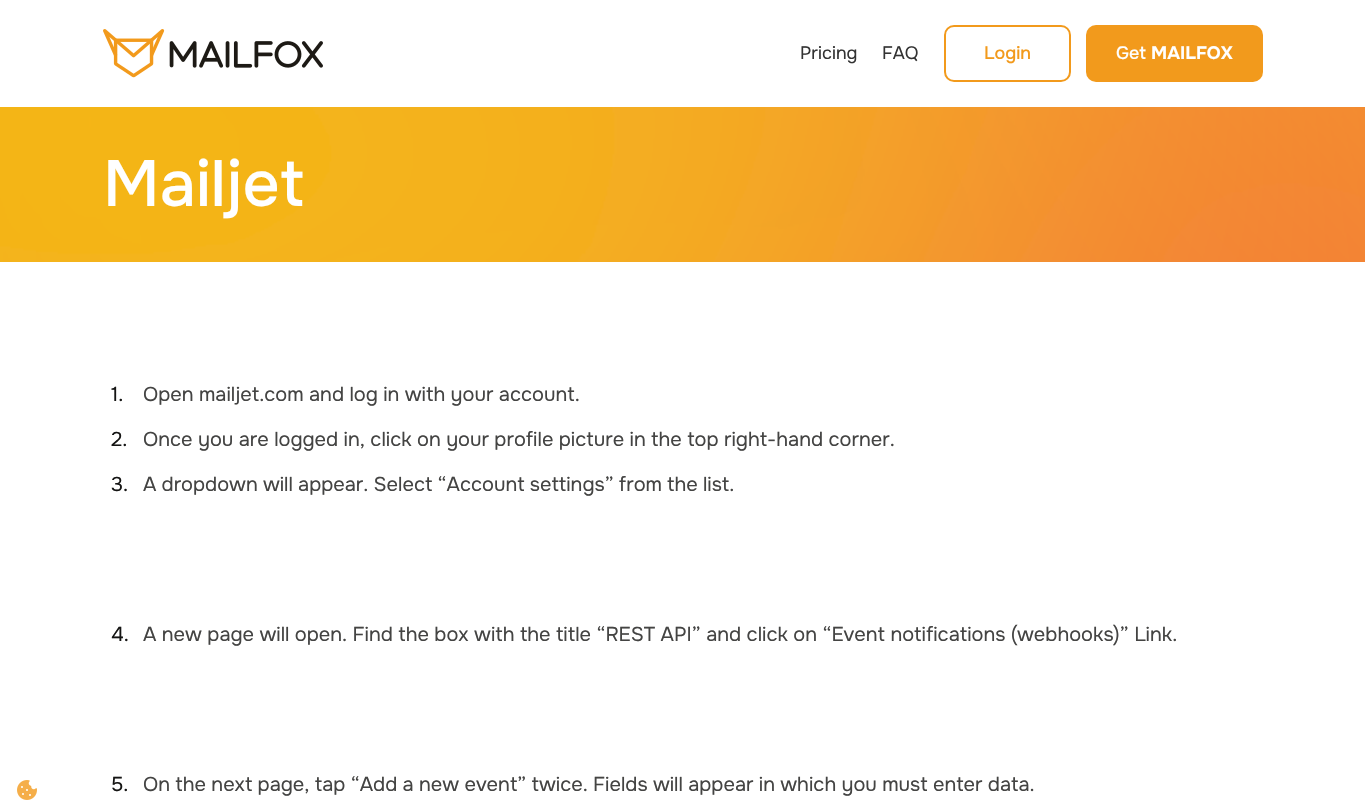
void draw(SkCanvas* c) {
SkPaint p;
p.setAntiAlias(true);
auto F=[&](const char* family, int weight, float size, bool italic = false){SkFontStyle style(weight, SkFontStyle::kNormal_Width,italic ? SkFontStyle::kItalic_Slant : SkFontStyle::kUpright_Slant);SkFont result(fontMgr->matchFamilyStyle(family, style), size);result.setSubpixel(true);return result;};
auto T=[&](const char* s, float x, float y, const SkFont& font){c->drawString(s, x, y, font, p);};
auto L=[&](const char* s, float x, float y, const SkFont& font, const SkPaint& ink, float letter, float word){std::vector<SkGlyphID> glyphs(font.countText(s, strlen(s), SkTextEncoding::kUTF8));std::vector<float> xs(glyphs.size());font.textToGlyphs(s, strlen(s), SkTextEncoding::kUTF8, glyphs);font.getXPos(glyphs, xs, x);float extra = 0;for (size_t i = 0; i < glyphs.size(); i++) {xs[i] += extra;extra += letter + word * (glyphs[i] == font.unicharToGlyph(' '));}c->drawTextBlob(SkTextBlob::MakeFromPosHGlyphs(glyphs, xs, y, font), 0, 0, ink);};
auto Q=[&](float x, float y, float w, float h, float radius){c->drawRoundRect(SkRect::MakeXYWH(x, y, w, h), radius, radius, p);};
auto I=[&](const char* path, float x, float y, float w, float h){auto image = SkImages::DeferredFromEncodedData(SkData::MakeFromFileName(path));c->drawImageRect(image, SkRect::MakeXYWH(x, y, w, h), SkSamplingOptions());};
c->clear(0xffffffff);
I("1.png",103,29,220,49);
auto f1 = F("Onest",400,18);
p.setColor(0xff333333);
T("Pricing",800,59,f1);
T("FAQ",882,59,f1);
p.setStroke(true);
p.setStrokeWidth(2);
p.setColor(0xfff29a1c);
c->drawRoundRect(SkRect::MakeXYWH(945,26,125,55),9,9,p);
auto f2 = F("Onest",500,18);
p.setStroke(false);
T("Login",984,59,f2);
Q(1086,25,177,57,10);
p.setColor(0xffffffff);
T("Get",1116,59,f2);
auto f3 = F("Onest",700,18);
T("MAILFOX",1151,59,f3);
I("2.png",17,780,20,20);
I("3.png",0,107,1365,155);
auto f4 = F("Onest",500,65);
T("Mailjet",103,206,f4);
auto f5 = F("Onest",400,20);
p.setColor(0xff151514);
T("1.",111,401,f5);
p.setColor(0xff444443);
T("Open mailjet.com and log in with your account.",143,401,f5);
p.setColor(0xff151514);
T("2.",111,446,f5);
p.setColor(0xff444443);
T("Once you are logged in, click on your profile picture in the top right-hand corner.",143,446,f5);
p.setColor(0xff151514);
T("3.",111,491,f5);
p.setColor(0xff444443);
L("A dropdown will appear. Select “Account settings” from the list.",143,491,f5,p,0,-.25);
p.setColor(0xff151514);
T("4.",111,641,f5);
p.setColor(0xff444443);
T("A new page will open. Find the box with the title “REST API” and click on “Event notifications (webhooks)” Link.",143,641,f5);
p.setColor(0xff151514);
T("5.",111,791,f5);
p.setColor(0xff444443);
L("On the next page, tap “Add a new event” twice. Fields will appear in which you must enter data.",143,791,f5,p,0,-.1);
}
